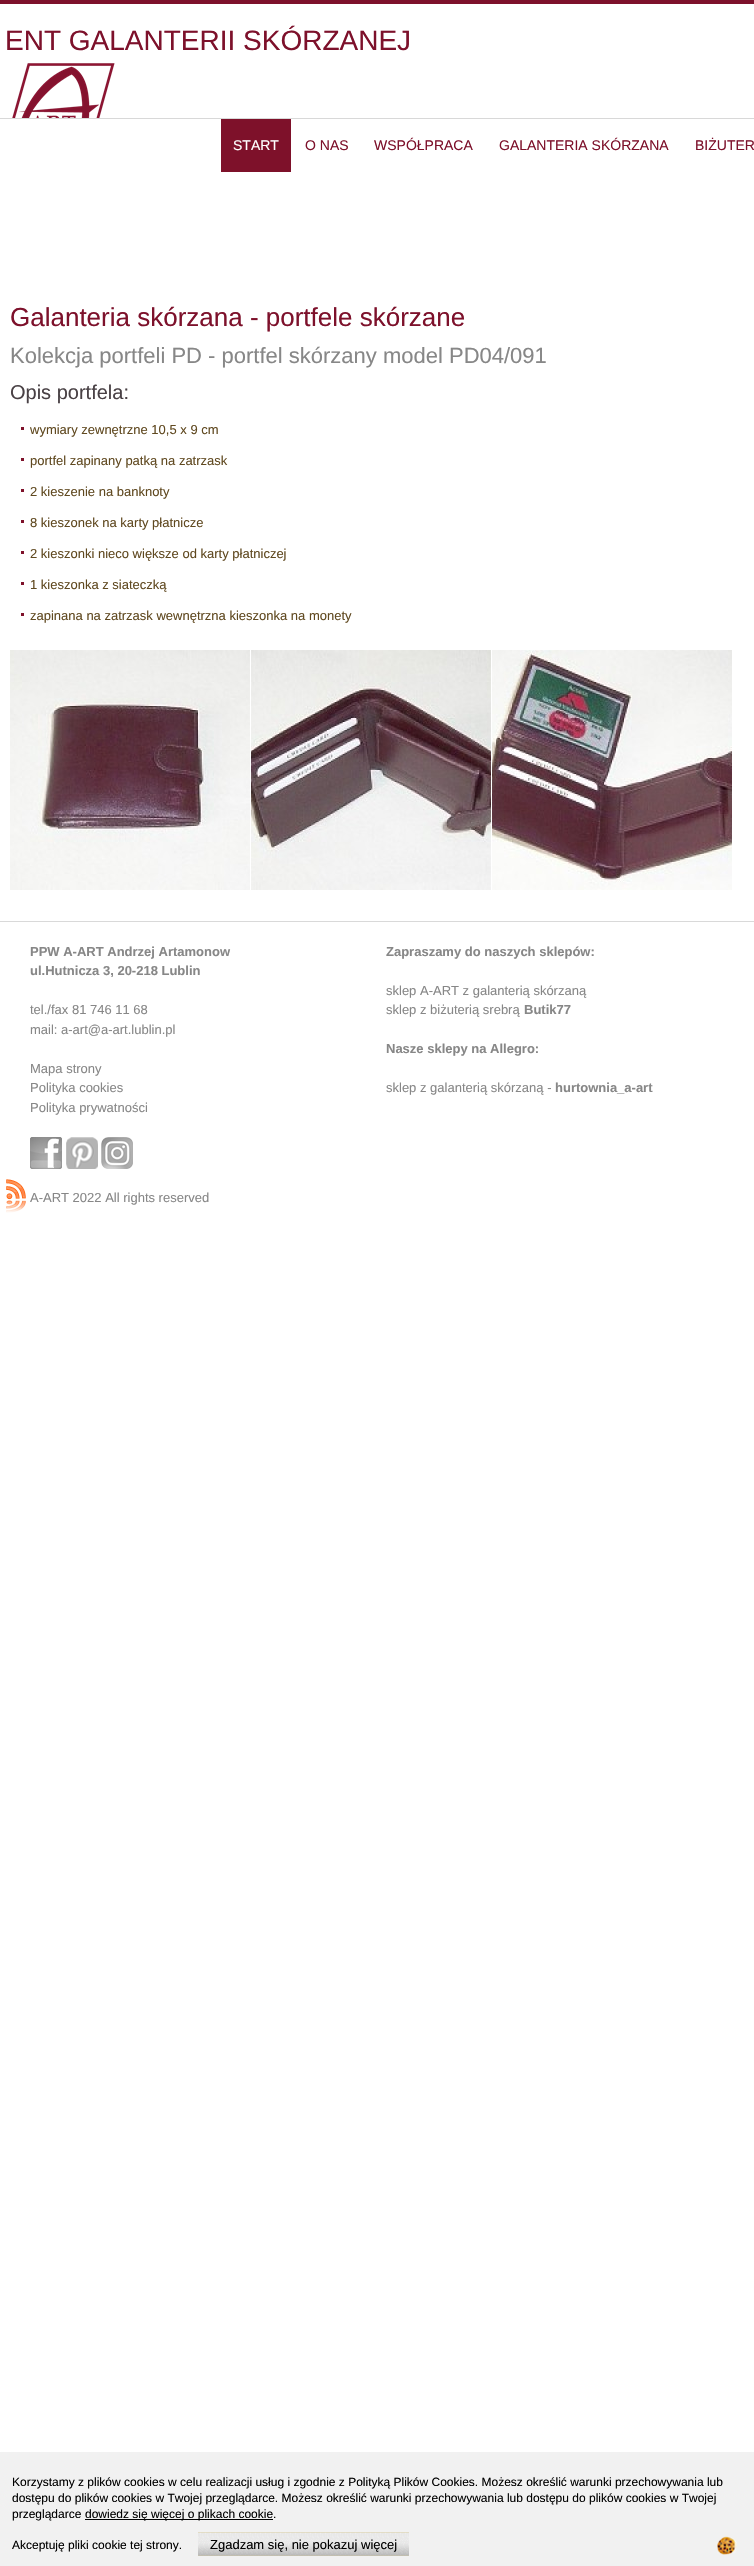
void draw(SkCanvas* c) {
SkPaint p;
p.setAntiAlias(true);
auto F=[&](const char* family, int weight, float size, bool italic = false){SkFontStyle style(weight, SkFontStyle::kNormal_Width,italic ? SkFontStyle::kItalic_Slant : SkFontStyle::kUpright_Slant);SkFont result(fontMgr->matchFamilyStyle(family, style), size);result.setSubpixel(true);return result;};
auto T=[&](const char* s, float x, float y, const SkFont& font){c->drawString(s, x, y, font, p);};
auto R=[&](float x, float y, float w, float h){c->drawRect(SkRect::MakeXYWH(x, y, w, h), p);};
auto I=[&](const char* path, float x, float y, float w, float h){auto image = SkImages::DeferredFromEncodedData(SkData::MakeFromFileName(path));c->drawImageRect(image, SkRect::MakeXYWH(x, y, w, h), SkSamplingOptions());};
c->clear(0xffffffff);
p.setColor(0xff7d112b);
R(0,0,754,4);
auto f1 = F("Liberation Sans",400,28);
T("ENT GALANTERII SKÓRZANEJ",5,50,f1);
I("1.png",12,63,103,55);
p.setColor(0xffd8d8d8);
R(0,118,754,1);
p.setColor(0xff7e112a);
R(221,119,70,53);
auto f2 = F("Liberation Sans",400,14);
p.setColor(0xffffffff);
T("START",233,150,f2);
p.setColor(0xff7d112b);
T("O NAS",305,150,f2);
T("WSPÓŁPRACA",374,150,f2);
T("GALANTERIA SKÓRZANA",499,150,f2);
T("BIŻUTER",695,150,f2);
auto f3 = F("Liberation Sans",400,26);
T("Galanteria skórzana - portfele skórzane",10,326,f3);
auto f4 = F("Liberation Sans",400,22);
p.setColor(0xff878787);
T("Kolekcja portfeli PD - portfel skórzany model PD04/091",10,363,f4);
auto f5 = F("Liberation Sans",400,20);
p.setColor(0xff494145);
T("Opis portfela:",10,399,f5);
p.setColor(0xff7e112a);
R(21,427,3,3);
auto f6 = F("Liberation Sans",400,13);
p.setColor(0xff604920);
T("wymiary zewnętrzne 10,5 x 9 cm",30,434,f6);
p.setColor(0xff7e112a);
R(21,458,3,3);
p.setColor(0xff604920);
T("portfel zapinany patką na zatrzask",30,465,f6);
p.setColor(0xff7e112a);
R(21,489,3,3);
p.setColor(0xff604920);
T("2 kieszenie na banknoty",30,496,f6);
p.setColor(0xff7e112a);
R(21,520,3,3);
p.setColor(0xff604920);
T("8 kieszonek na karty płatnicze",30,527,f6);
p.setColor(0xff7e112a);
R(21,551,3,3);
p.setColor(0xff604920);
T("2 kieszonki nieco większe od karty płatniczej",30,558,f6);
p.setColor(0xff7e112a);
R(21,582,3,3);
p.setColor(0xff604920);
T("1 kieszonka z siateczką",30,589,f6);
p.setColor(0xff7e112a);
R(21,613,3,3);
p.setColor(0xff604920);
T("zapinana na zatrzask wewnętrzna kieszonka na monety",30,620,f6);
I("2.png",10,650,240,240);
I("3.png",251,650,240,240);
I("4.png",492,650,240,240);
p.setColor(0xffd9d9d9);
R(0,921,754,1);
I("5.png",6,1179,20,34);
auto f7 = F("Liberation Sans",700,13);
p.setColor(0xff878787);
T("PPW A-ART Andrzej Artamonow",30,956,f7);
T("ul.Hutnicza 3, 20-218 Lublin",30,975,f7);
T("tel./fax 81 746 11 68",30,1014,f6);
T("mail: a-art@a-art.lublin.pl",30,1034,f6);
T("Mapa strony",30,1073,f6);
T("Polityka cookies",30,1092,f6);
T("Polityka prywatności",30,1112,f6);
I("6.png",30,1137,32,32);
I("7.png",66,1137,32,32);
I("8.png",101,1137,32,32);
T("A-ART 2022 All rights reserved",30,1202,f6);
T("Zapraszamy do naszych sklepów:",386,956,f7);
T("sklep A-ART z galanterią skórzaną",386,995,f6);
T("sklep z biżuterią srebrą",386,1014,f6);
T("Butik77",524,1014,f7);
T("Nasze sklepy na Allegro:",386,1053,f7);
T("sklep z galanterią skórzaną -",386,1092,f6);
T("hurtownia_a-art",555,1092,f7);
p.setColor(0xfff1f1f1);
R(0,2452,754,114);
auto f8 = F("Liberation Sans",400,12);
p.setColor(0xff000000);
T("Korzystamy z plików cookies w celu realizacji usług i zgodnie z Polityką Plików Cookies. Możesz określić warunki przechowywania lub",12,2486,f8);
T("dostępu do plików cookies w Twojej przeglądarce. Możesz określić warunki przechowywania lub dostępu do plików cookies w Twojej",12,2502,f8);
T("przeglądarce",12,2518,f8);
R(85,2519,188,1);
T("dowiedz się więcej o plikach cookie.",85,2518,f8);
T("Akceptuję pliki cookie tej strony.",12,2549,f8);
I("9.png",198,2532,211,24);
T("Zgadzam się, nie pokazuj więcej",210,2549,f6);
I("10.png",717,2536,20,19);
}
